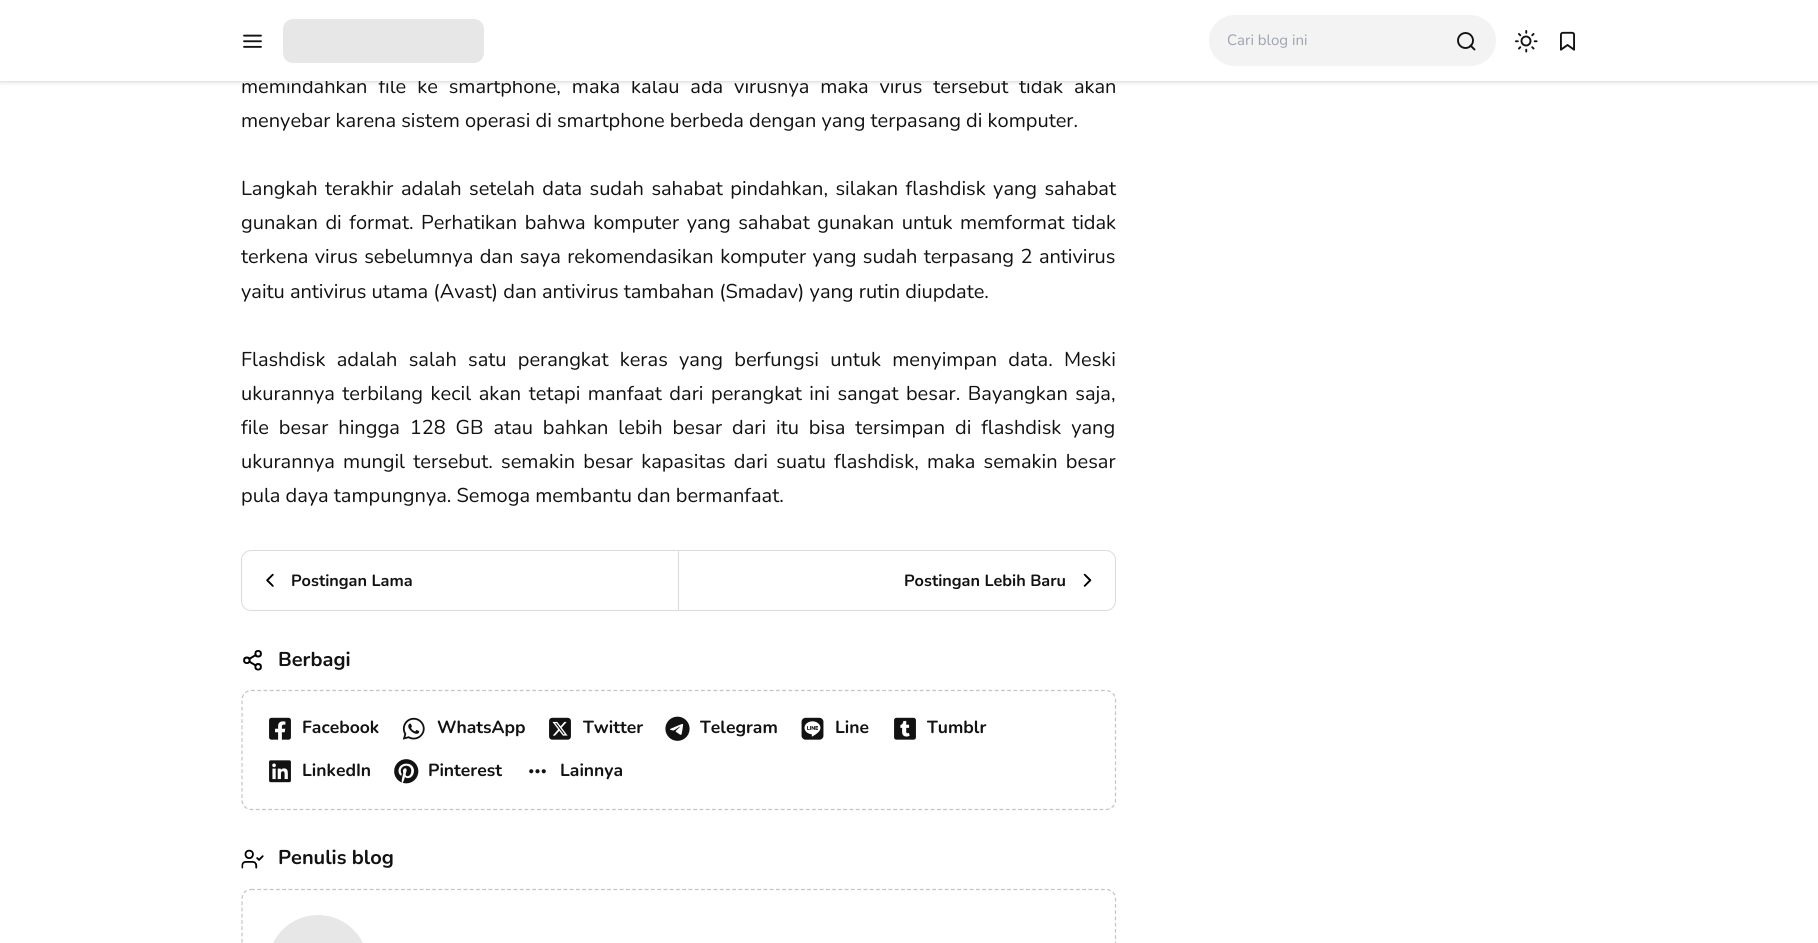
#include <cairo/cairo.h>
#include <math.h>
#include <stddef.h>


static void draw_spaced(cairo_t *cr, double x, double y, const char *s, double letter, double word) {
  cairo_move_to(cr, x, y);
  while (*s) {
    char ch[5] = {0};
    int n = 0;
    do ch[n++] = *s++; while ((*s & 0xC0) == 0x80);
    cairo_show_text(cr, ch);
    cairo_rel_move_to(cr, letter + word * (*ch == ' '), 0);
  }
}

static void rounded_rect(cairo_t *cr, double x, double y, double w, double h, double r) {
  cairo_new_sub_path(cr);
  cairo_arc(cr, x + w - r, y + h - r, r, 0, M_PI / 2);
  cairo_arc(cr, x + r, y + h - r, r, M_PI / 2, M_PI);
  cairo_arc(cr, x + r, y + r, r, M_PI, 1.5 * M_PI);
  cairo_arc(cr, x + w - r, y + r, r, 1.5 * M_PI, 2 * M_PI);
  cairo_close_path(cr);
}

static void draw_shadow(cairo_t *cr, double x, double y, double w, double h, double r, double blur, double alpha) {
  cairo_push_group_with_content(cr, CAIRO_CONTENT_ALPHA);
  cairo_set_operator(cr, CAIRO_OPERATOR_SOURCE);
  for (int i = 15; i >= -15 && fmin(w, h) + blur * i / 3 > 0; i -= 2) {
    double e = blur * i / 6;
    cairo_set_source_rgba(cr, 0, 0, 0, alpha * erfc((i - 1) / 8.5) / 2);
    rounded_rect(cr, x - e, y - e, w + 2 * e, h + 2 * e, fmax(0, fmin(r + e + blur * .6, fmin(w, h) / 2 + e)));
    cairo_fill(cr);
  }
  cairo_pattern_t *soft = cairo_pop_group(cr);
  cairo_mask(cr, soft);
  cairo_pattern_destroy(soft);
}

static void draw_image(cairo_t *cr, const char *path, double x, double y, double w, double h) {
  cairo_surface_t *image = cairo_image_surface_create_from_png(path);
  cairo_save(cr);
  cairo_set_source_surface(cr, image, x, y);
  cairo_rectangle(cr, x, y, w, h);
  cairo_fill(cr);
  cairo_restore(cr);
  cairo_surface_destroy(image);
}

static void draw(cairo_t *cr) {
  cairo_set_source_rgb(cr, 1, 1, 1);
  cairo_paint(cr);
  cairo_set_source_rgb(cr, 0, 0, 0);
  draw_shadow(cr, 1, 3, 1817, 78, 0, 1, 0.1);
  draw_shadow(cr, 0, 1, 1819, 82, 0, 2, 0.1);
  rounded_rect(cr, 241.5, 550.5, 874, 60, 9.5);
  cairo_set_source_rgb(cr, 219 / 255.0, 219 / 255.0, 219 / 255.0);
  cairo_set_line_width(cr, 1);
  cairo_stroke(cr);
  draw_image(cr, "images/4.png", 266, 573, 8, 14);
  cairo_rectangle(cr, 678, 551, 1, 59);
  cairo_fill(cr);
  draw_image(cr, "images/5.png", 1083, 573, 9, 14);
  draw_image(cr, "images/6.png", 243, 650, 19, 21);
  cairo_new_path(cr);
  cairo_move_to(cr, 251, 690.5);
  cairo_line_to(cr, 1106, 690.5);
  cairo_curve_to(cr, 1111.5, 690.5, 1115.5, 695, 1115.5, 700);
  cairo_line_to(cr, 1115.5, 800);
  cairo_curve_to(cr, 1115.5, 805, 1111.5, 809.5, 1106, 809.5);
  cairo_line_to(cr, 251, 809.5);
  cairo_curve_to(cr, 246, 809.5, 242, 805, 242, 800);
  cairo_line_to(cr, 242, 700);
  cairo_curve_to(cr, 242, 695, 246, 690.5, 251, 690.5);
  cairo_close_path(cr);
  cairo_set_source_rgb(cr, 196 / 255.0, 196 / 255.0, 196 / 255.0);
  cairo_set_line_width(cr, 1.2);
  cairo_set_dash(cr, (double[]){3.75, 2.5}, 2, 0);
  cairo_stroke(cr);
  draw_image(cr, "images/7.png", 269, 717, 22, 23);
  draw_image(cr, "images/8.png", 402, 717, 23, 23);
  draw_image(cr, "images/9.png", 549, 717, 22, 23);
  draw_image(cr, "images/10.png", 665, 716, 25, 25);
  draw_image(cr, "images/11.png", 801, 717, 23, 23);
  draw_image(cr, "images/12.png", 894, 717, 22, 23);
  draw_image(cr, "images/13.png", 269, 760, 22, 23);
  draw_image(cr, "images/14.png", 394, 759, 25, 25);
  draw_image(cr, "images/15.png", 529, 769, 17, 5);
  draw_image(cr, "images/16.png", 241, 849, 23, 20);
  cairo_new_path(cr);
  cairo_move_to(cr, 251, 889.5);
  cairo_line_to(cr, 1106, 889.5);
  cairo_curve_to(cr, 1111.5, 889.5, 1115.5, 893.5, 1115.5, 899);
  cairo_line_to(cr, 1115.5, 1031);
  cairo_curve_to(cr, 1115.5, 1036.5, 1111.5, 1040.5, 1106, 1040.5);
  cairo_line_to(cr, 251, 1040.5);
  cairo_curve_to(cr, 246, 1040.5, 242, 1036.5, 242, 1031);
  cairo_line_to(cr, 242, 899);
  cairo_curve_to(cr, 242, 893.5, 246, 889.5, 251, 889.5);
  cairo_close_path(cr);
  cairo_stroke(cr);
  cairo_set_source_rgb(cr, 231 / 255.0, 231 / 255.0, 231 / 255.0);
  rounded_rect(cr, 268, 915, 100, 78, 50);
  cairo_fill(cr);
  cairo_select_font_face(cr, "Nunito", CAIRO_FONT_SLANT_NORMAL, CAIRO_FONT_WEIGHT_NORMAL);
  cairo_set_font_size(cr, 20);
  cairo_set_source_rgb(cr, 18 / 255.0, 18 / 255.0, 18 / 255.0);
  draw_spaced(cr, 241, 93, "memindahkan file ke smartphone, maka kalau ada virusnya maka virus tersebut tidak akan", 0, 5.75);
  cairo_set_source_rgb(cr, 1, 1, 1);
  cairo_rectangle(cr, 0, 0, 1818, 81);
  cairo_fill(cr);
  draw_image(cr, "images/3.png", 1560, 31, 15, 20);
  draw_image(cr, "images/2.png", 1515, 30, 23, 23);
  cairo_set_source_rgb(cr, 243 / 255.0, 243 / 255.0, 243 / 255.0);
  rounded_rect(cr, 1209, 15, 287, 51, 25.5);
  cairo_fill(cr);
  cairo_arc(cr, 1465.5, 40.5, 7.5, 0, 2 * M_PI);
  cairo_set_source_rgb(cr, 18 / 255.0, 18 / 255.0, 18 / 255.0);
  cairo_set_line_width(cr, 1.9);
  cairo_set_dash(cr, NULL, 0, 0);
  cairo_stroke(cr);
  cairo_new_path(cr);
  cairo_move_to(cr, 1474.5, 49.5);
  cairo_line_to(cr, 1470.5, 45.5);
  cairo_set_line_cap(cr, CAIRO_LINE_CAP_ROUND);
  cairo_set_line_join(cr, CAIRO_LINE_JOIN_ROUND);
  cairo_stroke(cr);
  draw_image(cr, "images/1.png", 243, 34, 19, 14);
  cairo_save(cr);
  cairo_rectangle(cr, 1228, 30, 208, 20);
  cairo_clip(cr);
  cairo_set_font_size(cr, 15);
  cairo_set_source_rgb(cr, 156 / 255.0, 163 / 255.0, 175 / 255.0);
  cairo_move_to(cr, 1227, 45);
  cairo_show_text(cr, "Cari blog ini");
  cairo_restore(cr);
  cairo_set_source_rgb(cr, 231 / 255.0, 231 / 255.0, 231 / 255.0);
  rounded_rect(cr, 283, 19, 201, 44, 10);
  cairo_fill(cr);
  cairo_set_source_rgb(cr, 18 / 255.0, 18 / 255.0, 18 / 255.0);
  cairo_move_to(cr, 241, 127);
  cairo_show_text(cr, "menyebar karena sistem operasi di smartphone berbeda dengan yang terpasang di komputer.");
  draw_spaced(cr, 241, 195, "Langkah terakhir adalah setelah data sudah sahabat pindahkan, silakan flashdisk yang sahabat", 0, 2.25);
  draw_spaced(cr, 241, 229, "gunakan di format. Perhatikan bahwa komputer yang sahabat gunakan untuk memformat tidak", 0, 2.4);
  draw_spaced(cr, 241, 263, "terkena virus sebelumnya dan saya rekomendasikan komputer yang sudah terpasang 2 antivirus", 0, 1.25);
  cairo_move_to(cr, 241, 298);
  cairo_show_text(cr, "yaitu antivirus utama (Avast) dan antivirus tambahan (Smadav) yang rutin diupdate.");
  draw_spaced(cr, 241, 366, "Flashdisk adalah salah satu perangkat keras yang berfungsi untuk menyimpan data. Meski", 0, 6.1);
  draw_spaced(cr, 241, 400, "ukurannya terbilang kecil akan tetapi manfaat dari perangkat ini sangat besar. Bayangkan saja,", 0, 2.4);
  draw_spaced(cr, 241, 434, "file besar hingga 128 GB atau bahkan lebih besar dari itu bisa tersimpan di flashdisk yang", 0, 4.75);
  draw_spaced(cr, 241, 468, "ukurannya mungil tersebut. semakin besar kapasitas dari suatu flashdisk, maka semakin besar", 0, 3.1);
  cairo_move_to(cr, 241, 502);
  cairo_show_text(cr, "pula daya tampungnya. Semoga membantu dan bermanfaat.");
  cairo_select_font_face(cr, "Nunito", CAIRO_FONT_SLANT_NORMAL, CAIRO_FONT_WEIGHT_BOLD);
  cairo_set_font_size(cr, 16.25);
  cairo_move_to(cr, 291, 586);
  cairo_show_text(cr, "Postingan Lama");
  cairo_move_to(cr, 904, 586);
  cairo_show_text(cr, "Postingan Lebih Baru");
  cairo_set_font_size(cr, 20);
  cairo_move_to(cr, 278, 666);
  cairo_show_text(cr, "Berbagi");
  cairo_set_font_size(cr, 17.5);
  cairo_move_to(cr, 302, 733);
  cairo_show_text(cr, "Facebook");
  cairo_move_to(cr, 437, 733);
  cairo_show_text(cr, "WhatsApp");
  cairo_move_to(cr, 583, 733);
  cairo_show_text(cr, "Twitter");
  cairo_move_to(cr, 700, 733);
  cairo_show_text(cr, "Telegram");
  cairo_move_to(cr, 835, 733);
  cairo_show_text(cr, "Line");
  cairo_move_to(cr, 927, 733);
  cairo_show_text(cr, "Tumblr");
  cairo_move_to(cr, 302, 776);
  cairo_show_text(cr, "LinkedIn");
  cairo_move_to(cr, 428, 776);
  cairo_show_text(cr, "Pinterest");
  cairo_move_to(cr, 560, 776);
  cairo_show_text(cr, "Lainnya");
  cairo_set_font_size(cr, 20);
  cairo_move_to(cr, 278, 864);
  cairo_show_text(cr, "Penulis blog");
}

int main(void) {
  cairo_surface_t *surface = cairo_image_surface_create(CAIRO_FORMAT_RGB24, 1818, 943);
  cairo_t *cr = cairo_create(surface);
  cairo_font_options_t *options = cairo_font_options_create();
  cairo_font_options_set_hint_metrics(options, CAIRO_HINT_METRICS_OFF);
  cairo_font_options_set_hint_style(options, CAIRO_HINT_STYLE_NONE);
  cairo_set_font_options(cr, options);
  cairo_set_miter_limit(cr, 4);
  draw(cr);
  cairo_surface_write_to_png(surface, "out.png");
  cairo_font_options_destroy(options);
  cairo_destroy(cr);
  cairo_surface_destroy(surface);
  return 0;
}
